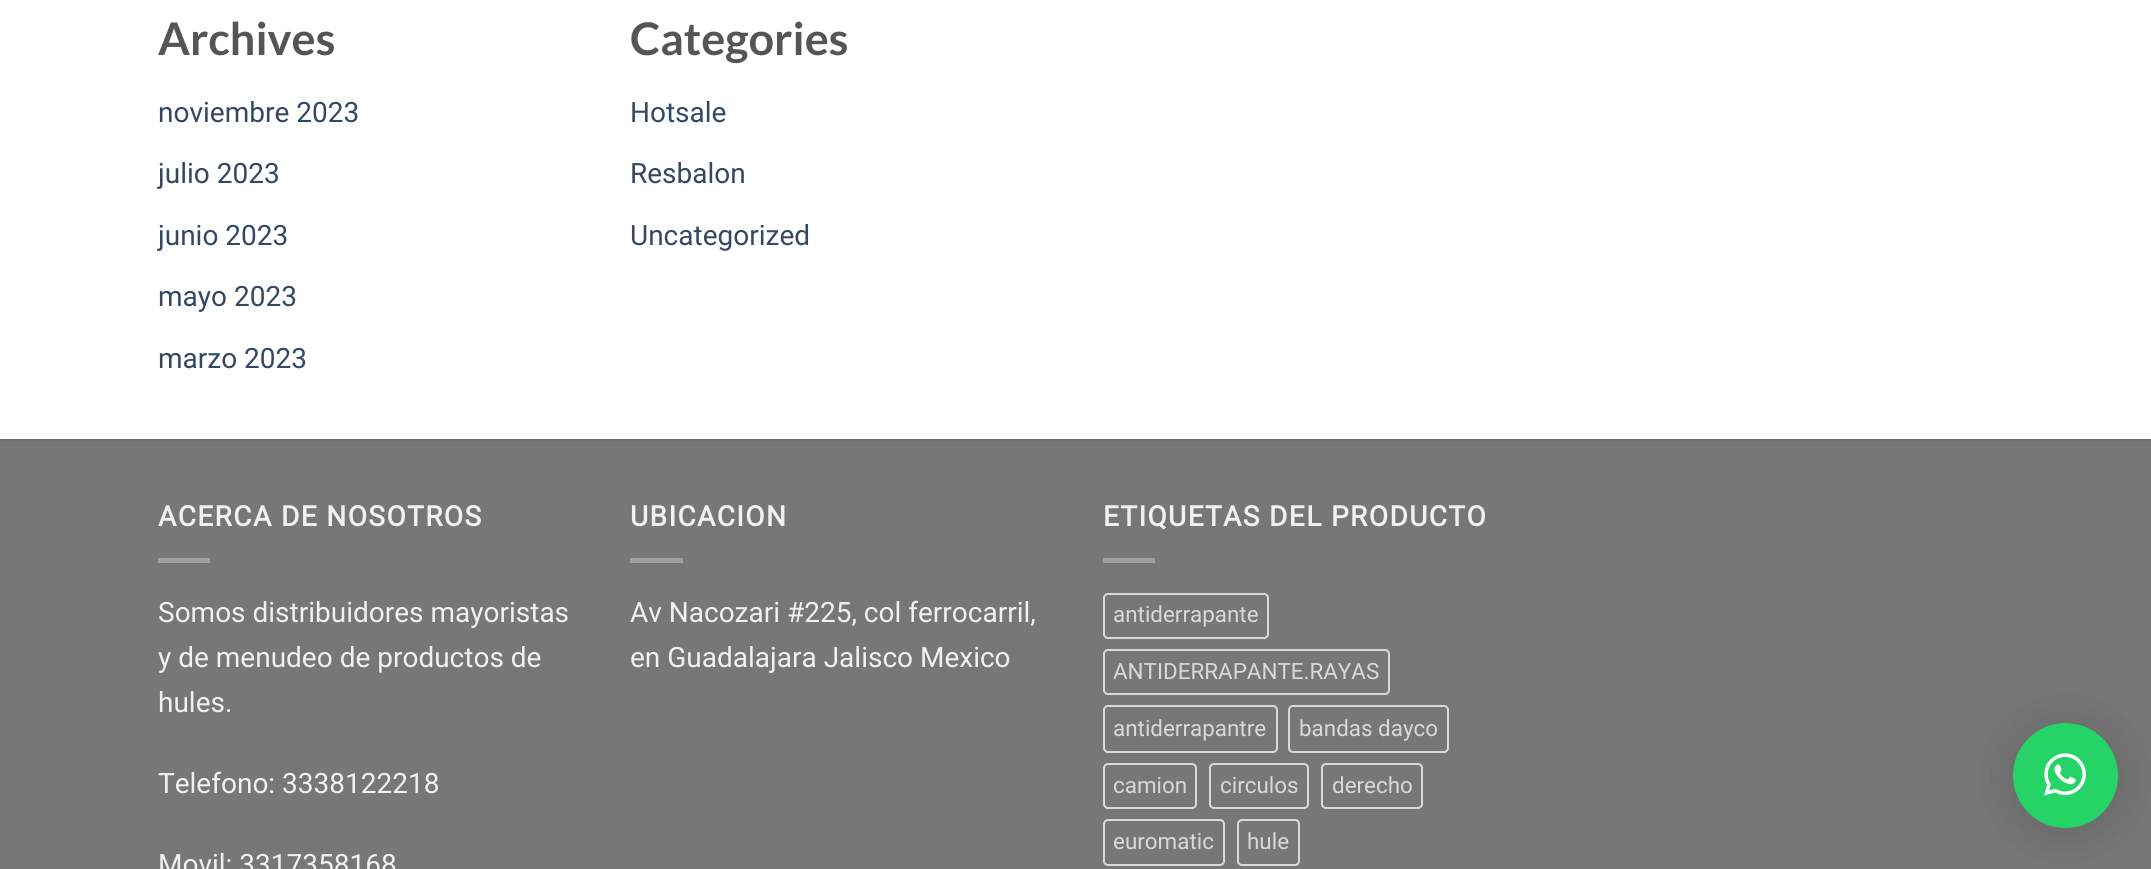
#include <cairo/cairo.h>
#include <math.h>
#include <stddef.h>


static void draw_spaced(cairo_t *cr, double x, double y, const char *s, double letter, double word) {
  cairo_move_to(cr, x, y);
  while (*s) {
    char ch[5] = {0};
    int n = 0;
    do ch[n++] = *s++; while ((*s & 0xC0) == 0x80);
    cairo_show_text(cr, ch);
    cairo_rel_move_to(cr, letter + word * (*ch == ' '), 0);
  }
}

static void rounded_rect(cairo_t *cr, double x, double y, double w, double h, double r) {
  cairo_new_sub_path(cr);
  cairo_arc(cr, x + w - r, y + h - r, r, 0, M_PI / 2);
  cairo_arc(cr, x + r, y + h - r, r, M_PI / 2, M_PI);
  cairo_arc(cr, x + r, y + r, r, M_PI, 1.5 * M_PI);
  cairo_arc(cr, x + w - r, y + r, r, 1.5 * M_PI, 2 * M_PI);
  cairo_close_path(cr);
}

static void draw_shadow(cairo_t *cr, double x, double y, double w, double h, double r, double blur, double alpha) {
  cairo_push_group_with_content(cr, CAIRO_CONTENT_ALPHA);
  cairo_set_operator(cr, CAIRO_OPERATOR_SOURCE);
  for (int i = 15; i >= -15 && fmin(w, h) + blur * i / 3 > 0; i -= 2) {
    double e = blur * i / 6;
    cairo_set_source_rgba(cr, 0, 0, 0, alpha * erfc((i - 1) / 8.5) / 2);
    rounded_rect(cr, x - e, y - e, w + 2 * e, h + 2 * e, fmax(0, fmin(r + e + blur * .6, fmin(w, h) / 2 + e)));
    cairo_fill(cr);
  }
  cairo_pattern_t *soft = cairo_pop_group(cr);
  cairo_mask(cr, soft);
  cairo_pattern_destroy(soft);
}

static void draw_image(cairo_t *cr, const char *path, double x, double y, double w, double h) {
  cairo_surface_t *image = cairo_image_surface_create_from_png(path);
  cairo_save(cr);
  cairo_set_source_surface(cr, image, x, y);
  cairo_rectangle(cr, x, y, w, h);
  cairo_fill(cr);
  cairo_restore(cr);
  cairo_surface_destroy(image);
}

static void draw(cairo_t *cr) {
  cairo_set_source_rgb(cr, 1, 1, 1);
  cairo_paint(cr);
  cairo_set_source_rgb(cr, 119 / 255.0, 119 / 255.0, 119 / 255.0);
  cairo_rectangle(cr, 0, 441, 2151, 428);
  cairo_fill(cr);
  cairo_set_source_rgb(cr, 113 / 255.0, 113 / 255.0, 113 / 255.0);
  cairo_rectangle(cr, 0, 439, 2151, 2);
  cairo_fill(cr);
  cairo_set_source_rgb(cr, 160 / 255.0, 160 / 255.0, 160 / 255.0);
  cairo_rectangle(cr, 158, 558, 52, 5);
  cairo_fill(cr);
  cairo_rectangle(cr, 630, 558, 53, 5);
  cairo_fill(cr);
  cairo_rectangle(cr, 1103, 558, 52, 5);
  cairo_fill(cr);
  rounded_rect(cr, 1104, 594, 164, 44, 4);
  cairo_set_source_rgb(cr, 217 / 255.0, 217 / 255.0, 217 / 255.0);
  cairo_stroke(cr);
  rounded_rect(cr, 1104, 650, 285, 44, 4);
  cairo_stroke(cr);
  rounded_rect(cr, 1104, 706, 173, 46, 4);
  cairo_stroke(cr);
  rounded_rect(cr, 1289, 706, 159, 46, 4);
  cairo_stroke(cr);
  rounded_rect(cr, 1104, 764, 92, 44, 4);
  cairo_stroke(cr);
  rounded_rect(cr, 1210, 764, 98, 44, 4);
  cairo_stroke(cr);
  rounded_rect(cr, 1322, 764, 100, 44, 4);
  cairo_stroke(cr);
  rounded_rect(cr, 1104, 820, 120, 45, 4);
  cairo_stroke(cr);
  rounded_rect(cr, 1238, 820, 61, 45, 4);
  cairo_stroke(cr);
  cairo_set_source_rgb(cr, 0, 0, 0);
  draw_shadow(cr, 2013, 726, 105, 105, 52.5, 28, 0.16);
  cairo_set_source_rgb(cr, 37 / 255.0, 211 / 255.0, 102 / 255.0);
  cairo_arc(cr, 2065.5, 775.5, 52.5, 0, 2 * M_PI);
  cairo_fill(cr);
  draw_image(cr, "images/1.png", 2044, 753, 42, 43);
  cairo_select_font_face(cr, "Lato", CAIRO_FONT_SLANT_NORMAL, CAIRO_FONT_WEIGHT_BOLD);
  cairo_set_font_size(cr, 45);
  cairo_set_source_rgb(cr, 85 / 255.0, 85 / 255.0, 85 / 255.0);
  cairo_move_to(cr, 158, 55);
  cairo_show_text(cr, "Archives");
  cairo_select_font_face(cr, "Roboto", CAIRO_FONT_SLANT_NORMAL, CAIRO_FONT_WEIGHT_NORMAL);
  cairo_set_font_size(cr, 28);
  cairo_set_source_rgb(cr, 51 / 255.0, 72 / 255.0, 98 / 255.0);
  cairo_move_to(cr, 158, 122);
  cairo_show_text(cr, "noviembre 2023");
  cairo_move_to(cr, 158, 183);
  cairo_show_text(cr, "julio 2023");
  cairo_move_to(cr, 158, 245);
  cairo_show_text(cr, "junio 2023");
  cairo_move_to(cr, 158, 306);
  cairo_show_text(cr, "mayo 2023");
  cairo_move_to(cr, 158, 368);
  cairo_show_text(cr, "marzo 2023");
  cairo_select_font_face(cr, "Lato", CAIRO_FONT_SLANT_NORMAL, CAIRO_FONT_WEIGHT_BOLD);
  cairo_set_font_size(cr, 45);
  cairo_set_source_rgb(cr, 85 / 255.0, 85 / 255.0, 85 / 255.0);
  cairo_move_to(cr, 630, 55);
  cairo_show_text(cr, "Categories");
  cairo_select_font_face(cr, "Roboto", CAIRO_FONT_SLANT_NORMAL, CAIRO_FONT_WEIGHT_NORMAL);
  cairo_set_font_size(cr, 28);
  cairo_set_source_rgb(cr, 51 / 255.0, 72 / 255.0, 98 / 255.0);
  cairo_move_to(cr, 630, 122);
  cairo_show_text(cr, "Hotsale");
  cairo_move_to(cr, 630, 183);
  cairo_show_text(cr, "Resbalon");
  cairo_move_to(cr, 630, 245);
  cairo_show_text(cr, "Uncategorized");
  cairo_select_font_face(cr, "Roboto", CAIRO_FONT_SLANT_NORMAL, CAIRO_FONT_WEIGHT_BOLD);
  cairo_set_source_rgb(cr, 241 / 255.0, 241 / 255.0, 241 / 255.0);
  draw_spaced(cr, 158, 526, "ACERCA DE NOSOTROS", 1.4, 0);
  cairo_select_font_face(cr, "Roboto", CAIRO_FONT_SLANT_NORMAL, CAIRO_FONT_WEIGHT_NORMAL);
  cairo_move_to(cr, 158, 622);
  cairo_show_text(cr, "Somos distribuidores mayoristas");
  cairo_move_to(cr, 158, 667);
  cairo_show_text(cr, "y de menudeo de productos de");
  cairo_move_to(cr, 158, 712);
  cairo_show_text(cr, "hules.");
  cairo_move_to(cr, 158, 793);
  cairo_show_text(cr, "Telefono: 3338122218");
  cairo_move_to(cr, 158, 874);
  cairo_show_text(cr, "Movil: 3317358168");
  cairo_select_font_face(cr, "Roboto", CAIRO_FONT_SLANT_NORMAL, CAIRO_FONT_WEIGHT_BOLD);
  draw_spaced(cr, 630, 526, "UBICACION", 1.4, 0);
  cairo_select_font_face(cr, "Roboto", CAIRO_FONT_SLANT_NORMAL, CAIRO_FONT_WEIGHT_NORMAL);
  cairo_move_to(cr, 630, 622);
  cairo_show_text(cr, "Av Nacozari #225, col ferrocarril,");
  cairo_move_to(cr, 630, 667);
  cairo_show_text(cr, "en Guadalajara Jalisco Mexico");
  cairo_select_font_face(cr, "Roboto", CAIRO_FONT_SLANT_NORMAL, CAIRO_FONT_WEIGHT_BOLD);
  draw_spaced(cr, 1103, 526, "ETIQUETAS DEL PRODUCTO", 1.4, 0);
  cairo_select_font_face(cr, "Roboto", CAIRO_FONT_SLANT_NORMAL, CAIRO_FONT_WEIGHT_NORMAL);
  cairo_set_font_size(cr, 22.4);
  cairo_set_source_rgb(cr, 217 / 255.0, 217 / 255.0, 217 / 255.0);
  cairo_move_to(cr, 1113, 622);
  cairo_show_text(cr, "antiderrapante");
  cairo_move_to(cr, 1113, 679);
  cairo_show_text(cr, "ANTIDERRAPANTE.RAYAS");
  cairo_move_to(cr, 1113, 736);
  cairo_show_text(cr, "antiderrapantre");
  cairo_move_to(cr, 1299, 736);
  cairo_show_text(cr, "bandas dayco");
  cairo_move_to(cr, 1113, 793);
  cairo_show_text(cr, "camion");
  cairo_move_to(cr, 1220, 793);
  cairo_show_text(cr, "circulos");
  cairo_move_to(cr, 1332, 793);
  cairo_show_text(cr, "derecho");
  cairo_move_to(cr, 1113, 849);
  cairo_show_text(cr, "euromatic");
  cairo_move_to(cr, 1247, 849);
  cairo_show_text(cr, "hule");
}

int main(void) {
  cairo_surface_t *surface = cairo_image_surface_create(CAIRO_FORMAT_RGB24, 2151, 869);
  cairo_t *cr = cairo_create(surface);
  cairo_font_options_t *options = cairo_font_options_create();
  cairo_font_options_set_hint_metrics(options, CAIRO_HINT_METRICS_OFF);
  cairo_font_options_set_hint_style(options, CAIRO_HINT_STYLE_NONE);
  cairo_set_font_options(cr, options);
  cairo_set_miter_limit(cr, 4);
  draw(cr);
  cairo_surface_write_to_png(surface, "out.png");
  cairo_font_options_destroy(options);
  cairo_destroy(cr);
  cairo_surface_destroy(surface);
  return 0;
}
